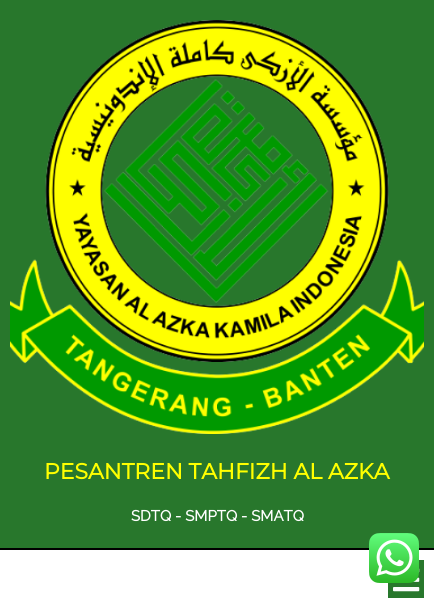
#include <cairo/cairo.h>
#include <math.h>
#include <stddef.h>


static void draw_image(cairo_t *cr, const char *path, double x, double y, double w, double h) {
  cairo_surface_t *image = cairo_image_surface_create_from_png(path);
  cairo_save(cr);
  cairo_set_source_surface(cr, image, x, y);
  cairo_rectangle(cr, x, y, w, h);
  cairo_fill(cr);
  cairo_restore(cr);
  cairo_surface_destroy(image);
}

static void draw(cairo_t *cr) {
  cairo_set_source_rgb(cr, 1, 1, 1);
  cairo_paint(cr);
  cairo_set_source_rgb(cr, 40 / 255.0, 119 / 255.0, 44 / 255.0);
  cairo_rectangle(cr, 0, 0, 434, 548);
  cairo_fill(cr);
  cairo_set_source_rgb(cr, 0, 0, 0);
  cairo_rectangle(cr, 0, 548, 434, 2);
  cairo_fill(cr);
  draw_image(cr, "images/1.png", 10, 20, 414, 414);
  cairo_set_source_rgb(cr, 40 / 255.0, 119 / 255.0, 44 / 255.0);
  cairo_rectangle(cr, 388, 560, 36, 38);
  cairo_fill(cr);
  draw_image(cr, "images/2.png", 393, 568, 27, 24);
  draw_image(cr, "images/3.png", 369, 533, 50, 50);
  cairo_select_font_face(cr, "Montserrat", CAIRO_FONT_SLANT_NORMAL, CAIRO_FONT_WEIGHT_BOLD);
  cairo_set_font_size(cr, 22);
  cairo_set_source_rgb(cr, 1, 1, 0);
  cairo_move_to(cr, 44, 479);
  cairo_show_text(cr, "PESANTREN TAHFIZH AL AZKA");
  cairo_select_font_face(cr, "Raleway", CAIRO_FONT_SLANT_NORMAL, CAIRO_FONT_WEIGHT_BOLD);
  cairo_set_font_size(cr, 15);
  cairo_set_source_rgb(cr, 1, 1, 1);
  cairo_move_to(cr, 131, 521);
  cairo_show_text(cr, "SDTQ - SMPTQ - SMATQ");
}

int main(void) {
  cairo_surface_t *surface = cairo_image_surface_create(CAIRO_FORMAT_RGB24, 434, 598);
  cairo_t *cr = cairo_create(surface);
  cairo_font_options_t *options = cairo_font_options_create();
  cairo_font_options_set_hint_metrics(options, CAIRO_HINT_METRICS_OFF);
  cairo_font_options_set_hint_style(options, CAIRO_HINT_STYLE_NONE);
  cairo_set_font_options(cr, options);
  cairo_set_miter_limit(cr, 4);
  draw(cr);
  cairo_surface_write_to_png(surface, "out.png");
  cairo_font_options_destroy(options);
  cairo_destroy(cr);
  cairo_surface_destroy(surface);
  return 0;
}
